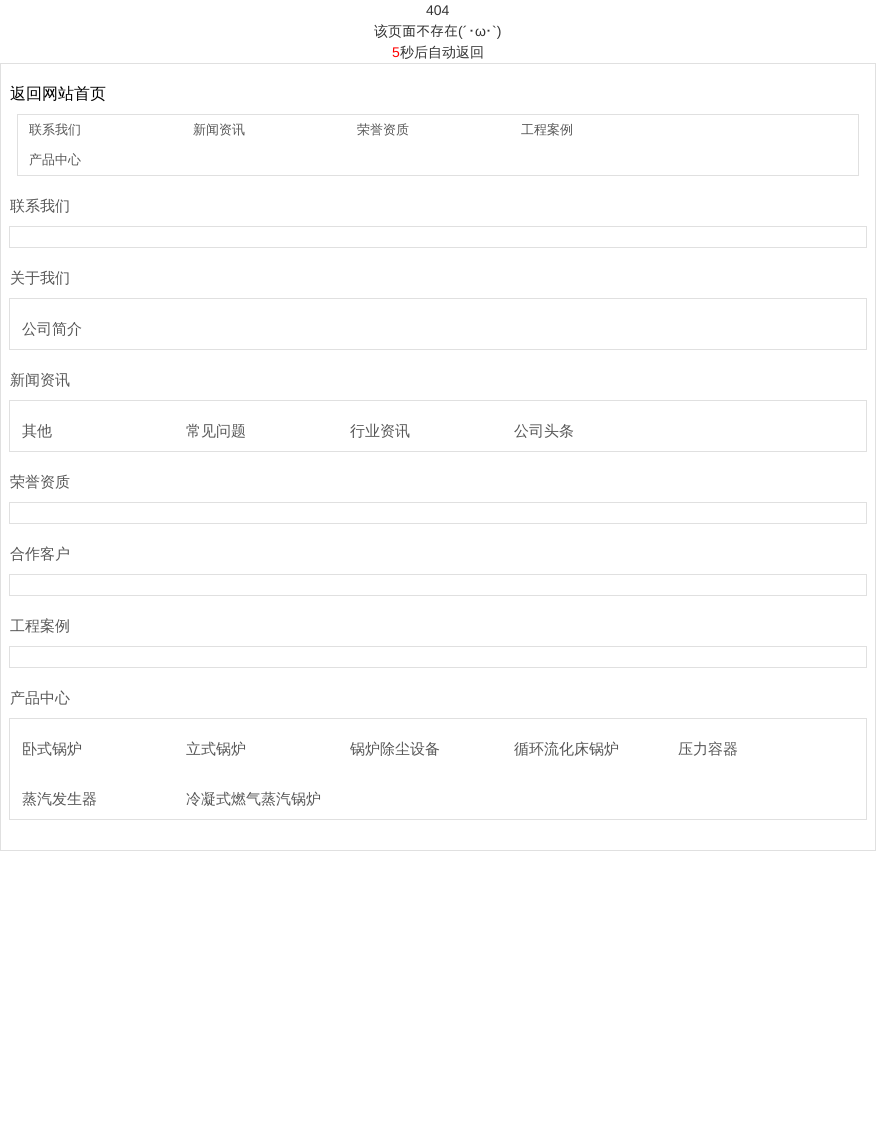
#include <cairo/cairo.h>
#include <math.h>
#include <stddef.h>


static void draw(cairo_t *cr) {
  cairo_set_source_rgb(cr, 1, 1, 1);
  cairo_paint(cr);
  cairo_rectangle(cr, 0.5, 63.5, 875, 787);
  cairo_set_source_rgb(cr, 224 / 255.0, 224 / 255.0, 224 / 255.0);
  cairo_set_line_width(cr, 1);
  cairo_stroke(cr);
  cairo_rectangle(cr, 17.5, 114.5, 841, 61);
  cairo_stroke(cr);
  cairo_rectangle(cr, 9.5, 226.5, 857, 21);
  cairo_stroke(cr);
  cairo_rectangle(cr, 9.5, 298.5, 857, 51);
  cairo_stroke(cr);
  cairo_rectangle(cr, 9.5, 400.5, 857, 51);
  cairo_stroke(cr);
  cairo_rectangle(cr, 9.5, 502.5, 857, 21);
  cairo_stroke(cr);
  cairo_rectangle(cr, 9.5, 574.5, 857, 21);
  cairo_stroke(cr);
  cairo_rectangle(cr, 9.5, 646.5, 857, 21);
  cairo_stroke(cr);
  cairo_rectangle(cr, 9.5, 718.5, 857, 101);
  cairo_stroke(cr);
  cairo_select_font_face(cr, "Liberation Sans", CAIRO_FONT_SLANT_NORMAL, CAIRO_FONT_WEIGHT_NORMAL);
  cairo_set_font_size(cr, 14);
  cairo_set_source_rgb(cr, 51 / 255.0, 51 / 255.0, 51 / 255.0);
  cairo_move_to(cr, 426, 15);
  cairo_show_text(cr, "404");
  cairo_select_font_face(cr, "WenQuanYi Zen Hei Medium", CAIRO_FONT_SLANT_NORMAL, CAIRO_FONT_WEIGHT_NORMAL);
  cairo_move_to(cr, 374, 36);
  cairo_show_text(cr, "该页");
  cairo_select_font_face(cr, "IPAGothic", CAIRO_FONT_SLANT_NORMAL, CAIRO_FONT_WEIGHT_NORMAL);
  cairo_move_to(cr, 402, 36);
  cairo_show_text(cr, "面不存在");
  cairo_select_font_face(cr, "Liberation Sans", CAIRO_FONT_SLANT_NORMAL, CAIRO_FONT_WEIGHT_NORMAL);
  cairo_move_to(cr, 458, 36);
  cairo_show_text(cr, "(´");
  cairo_select_font_face(cr, "IPAGothic", CAIRO_FONT_SLANT_NORMAL, CAIRO_FONT_WEIGHT_NORMAL);
  cairo_move_to(cr, 468, 36);
  cairo_show_text(cr, "･");
  cairo_select_font_face(cr, "Liberation Sans", CAIRO_FONT_SLANT_NORMAL, CAIRO_FONT_WEIGHT_NORMAL);
  cairo_move_to(cr, 475, 36);
  cairo_show_text(cr, "ω");
  cairo_select_font_face(cr, "IPAGothic", CAIRO_FONT_SLANT_NORMAL, CAIRO_FONT_WEIGHT_NORMAL);
  cairo_move_to(cr, 485, 36);
  cairo_show_text(cr, "･");
  cairo_select_font_face(cr, "Liberation Sans", CAIRO_FONT_SLANT_NORMAL, CAIRO_FONT_WEIGHT_NORMAL);
  cairo_move_to(cr, 492, 36);
  cairo_show_text(cr, "`)");
  cairo_set_source_rgb(cr, 1, 0, 0);
  cairo_move_to(cr, 392, 57);
  cairo_show_text(cr, "5");
  cairo_select_font_face(cr, "WenQuanYi Zen Hei Medium", CAIRO_FONT_SLANT_NORMAL, CAIRO_FONT_WEIGHT_NORMAL);
  cairo_set_source_rgb(cr, 51 / 255.0, 51 / 255.0, 51 / 255.0);
  cairo_move_to(cr, 400, 57);
  cairo_show_text(cr, "秒后自动返回");
  cairo_set_font_size(cr, 16);
  cairo_set_source_rgb(cr, 0, 0, 0);
  cairo_move_to(cr, 10, 99);
  cairo_show_text(cr, "返回网站首页");
  cairo_set_font_size(cr, 13);
  cairo_set_source_rgb(cr, 86 / 255.0, 86 / 255.0, 86 / 255.0);
  cairo_move_to(cr, 29, 134);
  cairo_show_text(cr, "联系我们");
  cairo_move_to(cr, 193, 134);
  cairo_show_text(cr, "新闻资讯");
  cairo_move_to(cr, 357, 134);
  cairo_show_text(cr, "荣誉资质");
  cairo_move_to(cr, 521, 134);
  cairo_show_text(cr, "工程案例");
  cairo_move_to(cr, 29, 164);
  cairo_show_text(cr, "产品中心");
  cairo_set_font_size(cr, 15);
  cairo_move_to(cr, 10, 211);
  cairo_show_text(cr, "联系我们");
  cairo_move_to(cr, 10, 283);
  cairo_show_text(cr, "关于我们");
  cairo_move_to(cr, 22, 334);
  cairo_show_text(cr, "公司简介");
  cairo_move_to(cr, 10, 385);
  cairo_show_text(cr, "新闻资讯");
  cairo_move_to(cr, 22, 436);
  cairo_show_text(cr, "其他");
  cairo_move_to(cr, 186, 436);
  cairo_show_text(cr, "常见问题");
  cairo_move_to(cr, 350, 436);
  cairo_show_text(cr, "行业资讯");
  cairo_move_to(cr, 514, 436);
  cairo_show_text(cr, "公司头条");
  cairo_move_to(cr, 10, 487);
  cairo_show_text(cr, "荣誉资质");
  cairo_move_to(cr, 10, 559);
  cairo_show_text(cr, "合作客户");
  cairo_move_to(cr, 10, 631);
  cairo_show_text(cr, "工程案例");
  cairo_move_to(cr, 10, 703);
  cairo_show_text(cr, "产品中心");
  cairo_move_to(cr, 22, 754);
  cairo_show_text(cr, "卧式锅炉");
  cairo_move_to(cr, 186, 754);
  cairo_show_text(cr, "立式锅炉");
  cairo_move_to(cr, 350, 754);
  cairo_show_text(cr, "锅炉除尘设备");
  cairo_move_to(cr, 514, 754);
  cairo_show_text(cr, "循环流化床锅炉");
  cairo_move_to(cr, 678, 754);
  cairo_show_text(cr, "压力容器");
  cairo_move_to(cr, 22, 804);
  cairo_show_text(cr, "蒸汽发生器");
  cairo_move_to(cr, 186, 804);
  cairo_show_text(cr, "冷凝式燃气蒸汽锅炉");
}

int main(void) {
  cairo_surface_t *surface = cairo_image_surface_create(CAIRO_FORMAT_RGB24, 876, 1134);
  cairo_t *cr = cairo_create(surface);
  cairo_font_options_t *options = cairo_font_options_create();
  cairo_font_options_set_hint_metrics(options, CAIRO_HINT_METRICS_OFF);
  cairo_font_options_set_hint_style(options, CAIRO_HINT_STYLE_NONE);
  cairo_set_font_options(cr, options);
  cairo_set_miter_limit(cr, 4);
  draw(cr);
  cairo_surface_write_to_png(surface, "out.png");
  cairo_font_options_destroy(options);
  cairo_destroy(cr);
  cairo_surface_destroy(surface);
  return 0;
}
